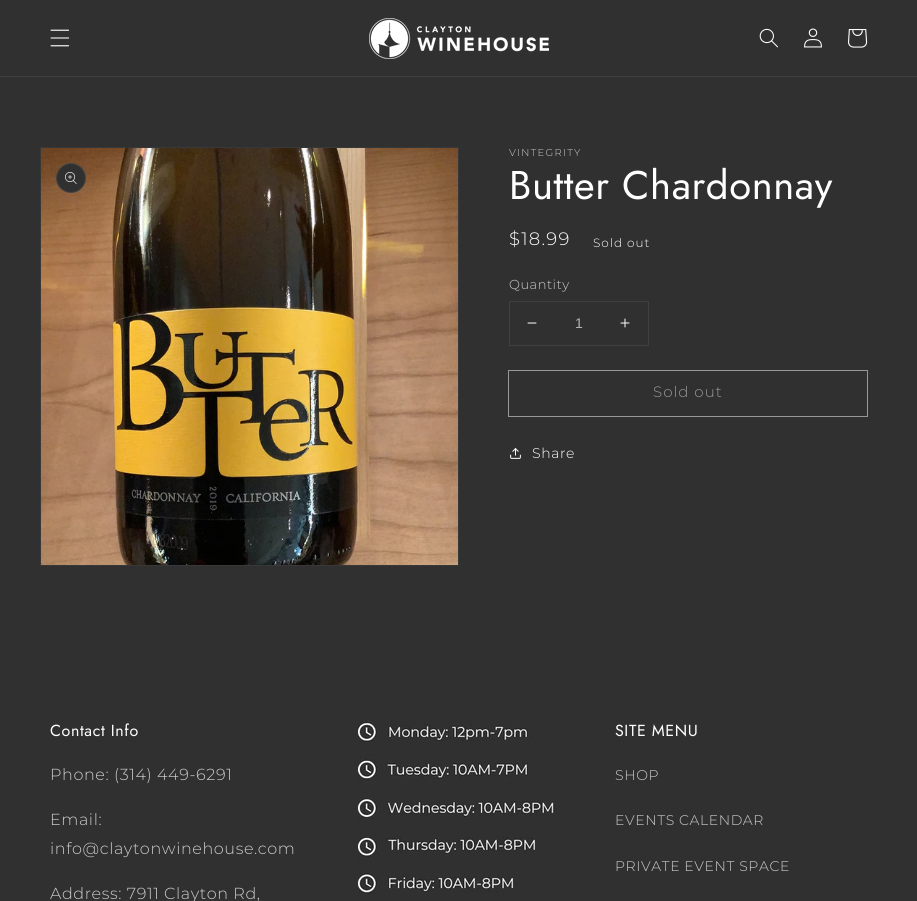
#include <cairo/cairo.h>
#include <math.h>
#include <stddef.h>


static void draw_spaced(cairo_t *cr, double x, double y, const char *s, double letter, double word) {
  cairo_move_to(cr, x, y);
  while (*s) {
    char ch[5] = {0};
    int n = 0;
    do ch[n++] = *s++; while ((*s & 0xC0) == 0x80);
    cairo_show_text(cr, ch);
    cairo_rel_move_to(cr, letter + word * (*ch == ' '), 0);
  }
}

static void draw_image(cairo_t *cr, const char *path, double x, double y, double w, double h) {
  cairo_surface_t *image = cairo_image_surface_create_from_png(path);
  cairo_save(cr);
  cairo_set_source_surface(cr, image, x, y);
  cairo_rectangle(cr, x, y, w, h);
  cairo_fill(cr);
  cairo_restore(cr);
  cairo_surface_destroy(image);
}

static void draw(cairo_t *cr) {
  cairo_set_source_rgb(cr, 48 / 255.0, 48 / 255.0, 48 / 255.0);
  cairo_paint(cr);
  cairo_set_source_rgb(cr, 65 / 255.0, 65 / 255.0, 65 / 255.0);
  cairo_rectangle(cr, 0, 76, 917, 1);
  cairo_fill(cr);
  draw_image(cr, "images/1.png", 50, 29, 20, 18);
  draw_image(cr, "images/2.png", 369, 18, 180, 41);
  draw_image(cr, "images/3.png", 759, 28, 19, 20);
  draw_image(cr, "images/4.png", 804, 28, 18, 20);
  draw_image(cr, "images/5.png", 848, 29, 20, 19);
  cairo_rectangle(cr, 40.5, 147.5, 418, 418);
  cairo_set_source_rgb(cr, 56 / 255.0, 56 / 255.0, 56 / 255.0);
  cairo_set_line_width(cr, 1);
  cairo_stroke(cr);
  draw_image(cr, "images/6.png", 41, 148, 417, 417);
  cairo_set_source_rgb(cr, 48 / 255.0, 48 / 255.0, 48 / 255.0);
  cairo_arc(cr, 71, 178, 15, 0, 2 * M_PI);
  cairo_fill(cr);
  cairo_arc(cr, 71, 178, 14.5, 0, 2 * M_PI);
  cairo_set_source_rgba(cr, 252 / 255.0, 252 / 255.0, 252 / 255.0, 0.1);
  cairo_stroke(cr);
  draw_image(cr, "images/7.png", 65, 172, 12, 12);
  cairo_rectangle(cr, 509.5, 301.5, 139, 44);
  cairo_set_source_rgb(cr, 64 / 255.0, 64 / 255.0, 64 / 255.0);
  cairo_stroke(cr);
  draw_image(cr, "images/8.png", 527, 322, 10, 2);
  draw_image(cr, "images/9.png", 620, 318, 10, 10);
  cairo_rectangle(cr, 508.5, 370.5, 359, 46);
  cairo_set_source_rgb(cr, 152 / 255.0, 152 / 255.0, 152 / 255.0);
  cairo_stroke(cr);
  draw_image(cr, "images/10.png", 510, 448, 11, 11);
  draw_image(cr, "images/11.png", 358, 721, 197, 173);
  cairo_select_font_face(cr, "Montserrat Light", CAIRO_FONT_SLANT_NORMAL, CAIRO_FONT_WEIGHT_NORMAL);
  cairo_set_font_size(cr, 10);
  cairo_set_source_rgb(cr, 203 / 255.0, 203 / 255.0, 203 / 255.0);
  draw_spaced(cr, 509, 156, "VINTEGRITY", 1.25, 0);
  cairo_select_font_face(cr, "Jost", CAIRO_FONT_SLANT_NORMAL, CAIRO_FONT_WEIGHT_NORMAL);
  cairo_set_font_size(cr, 40);
  cairo_set_source_rgb(cr, 1, 1, 1);
  draw_spaced(cr, 509, 199, "Butter Chardonnay", 0.6, 0);
  cairo_select_font_face(cr, "Montserrat Light", CAIRO_FONT_SLANT_NORMAL, CAIRO_FONT_WEIGHT_NORMAL);
  cairo_set_font_size(cr, 18);
  draw_spaced(cr, 509, 245, "$18.99", 1.25, 0);
  cairo_set_font_size(cr, 12);
  draw_spaced(cr, 593, 247, "Sold out", 1, 0);
  cairo_set_font_size(cr, 13);
  cairo_set_source_rgb(cr, 203 / 255.0, 203 / 255.0, 203 / 255.0);
  draw_spaced(cr, 509, 289, "Quantity", 0.5, 0);
  cairo_select_font_face(cr, "Liberation Sans", CAIRO_FONT_SLANT_NORMAL, CAIRO_FONT_WEIGHT_NORMAL);
  cairo_set_font_size(cr, 14);
  cairo_set_source_rgb(cr, 178 / 255.0, 178 / 255.0, 178 / 255.0);
  cairo_move_to(cr, 575, 328);
  cairo_show_text(cr, "1");
  cairo_select_font_face(cr, "Montserrat Light", CAIRO_FONT_SLANT_NORMAL, CAIRO_FONT_WEIGHT_NORMAL);
  cairo_set_font_size(cr, 15);
  cairo_set_source_rgb(cr, 152 / 255.0, 152 / 255.0, 152 / 255.0);
  draw_spaced(cr, 653, 397, "Sold out", 1, 0);
  cairo_set_font_size(cr, 14);
  cairo_set_source_rgb(cr, 1, 1, 1);
  draw_spaced(cr, 532, 458, "Share", 0.6, 0);
  cairo_select_font_face(cr, "Jost", CAIRO_FONT_SLANT_NORMAL, CAIRO_FONT_WEIGHT_NORMAL);
  cairo_set_font_size(cr, 16);
  draw_spaced(cr, 50, 736, "Contact Info", 0.6, 0);
  cairo_select_font_face(cr, "Montserrat Light", CAIRO_FONT_SLANT_NORMAL, CAIRO_FONT_WEIGHT_NORMAL);
  cairo_set_source_rgb(cr, 203 / 255.0, 203 / 255.0, 203 / 255.0);
  draw_spaced(cr, 50, 780, "Phone: (314) 449-6291", 0.6, 0);
  draw_spaced(cr, 50, 825, "Email:", 0.6, 0);
  draw_spaced(cr, 50, 854, "info@claytonwinehouse.com", 0.6, 0);
  draw_spaced(cr, 50, 899, "Address: 7911 Clayton Rd,", 0.6, 0);
  cairo_select_font_face(cr, "Jost", CAIRO_FONT_SLANT_NORMAL, CAIRO_FONT_WEIGHT_NORMAL);
  cairo_set_source_rgb(cr, 1, 1, 1);
  draw_spaced(cr, 615, 736, "SITE MENU", 0.6, 0);
  cairo_select_font_face(cr, "Montserrat Light", CAIRO_FONT_SLANT_NORMAL, CAIRO_FONT_WEIGHT_NORMAL);
  cairo_set_font_size(cr, 14);
  cairo_set_source_rgb(cr, 203 / 255.0, 203 / 255.0, 203 / 255.0);
  draw_spaced(cr, 615, 780, "SHOP", 0.6, 0);
  draw_spaced(cr, 615, 825, "EVENTS CALENDAR", 0.6, 0);
  draw_spaced(cr, 615, 871, "PRIVATE EVENT SPACE", 0.6, 0);
}

int main(void) {
  cairo_surface_t *surface = cairo_image_surface_create(CAIRO_FORMAT_RGB24, 917, 901);
  cairo_t *cr = cairo_create(surface);
  cairo_font_options_t *options = cairo_font_options_create();
  cairo_font_options_set_hint_metrics(options, CAIRO_HINT_METRICS_OFF);
  cairo_font_options_set_hint_style(options, CAIRO_HINT_STYLE_NONE);
  cairo_set_font_options(cr, options);
  cairo_set_miter_limit(cr, 4);
  draw(cr);
  cairo_surface_write_to_png(surface, "out.png");
  cairo_font_options_destroy(options);
  cairo_destroy(cr);
  cairo_surface_destroy(surface);
  return 0;
}
